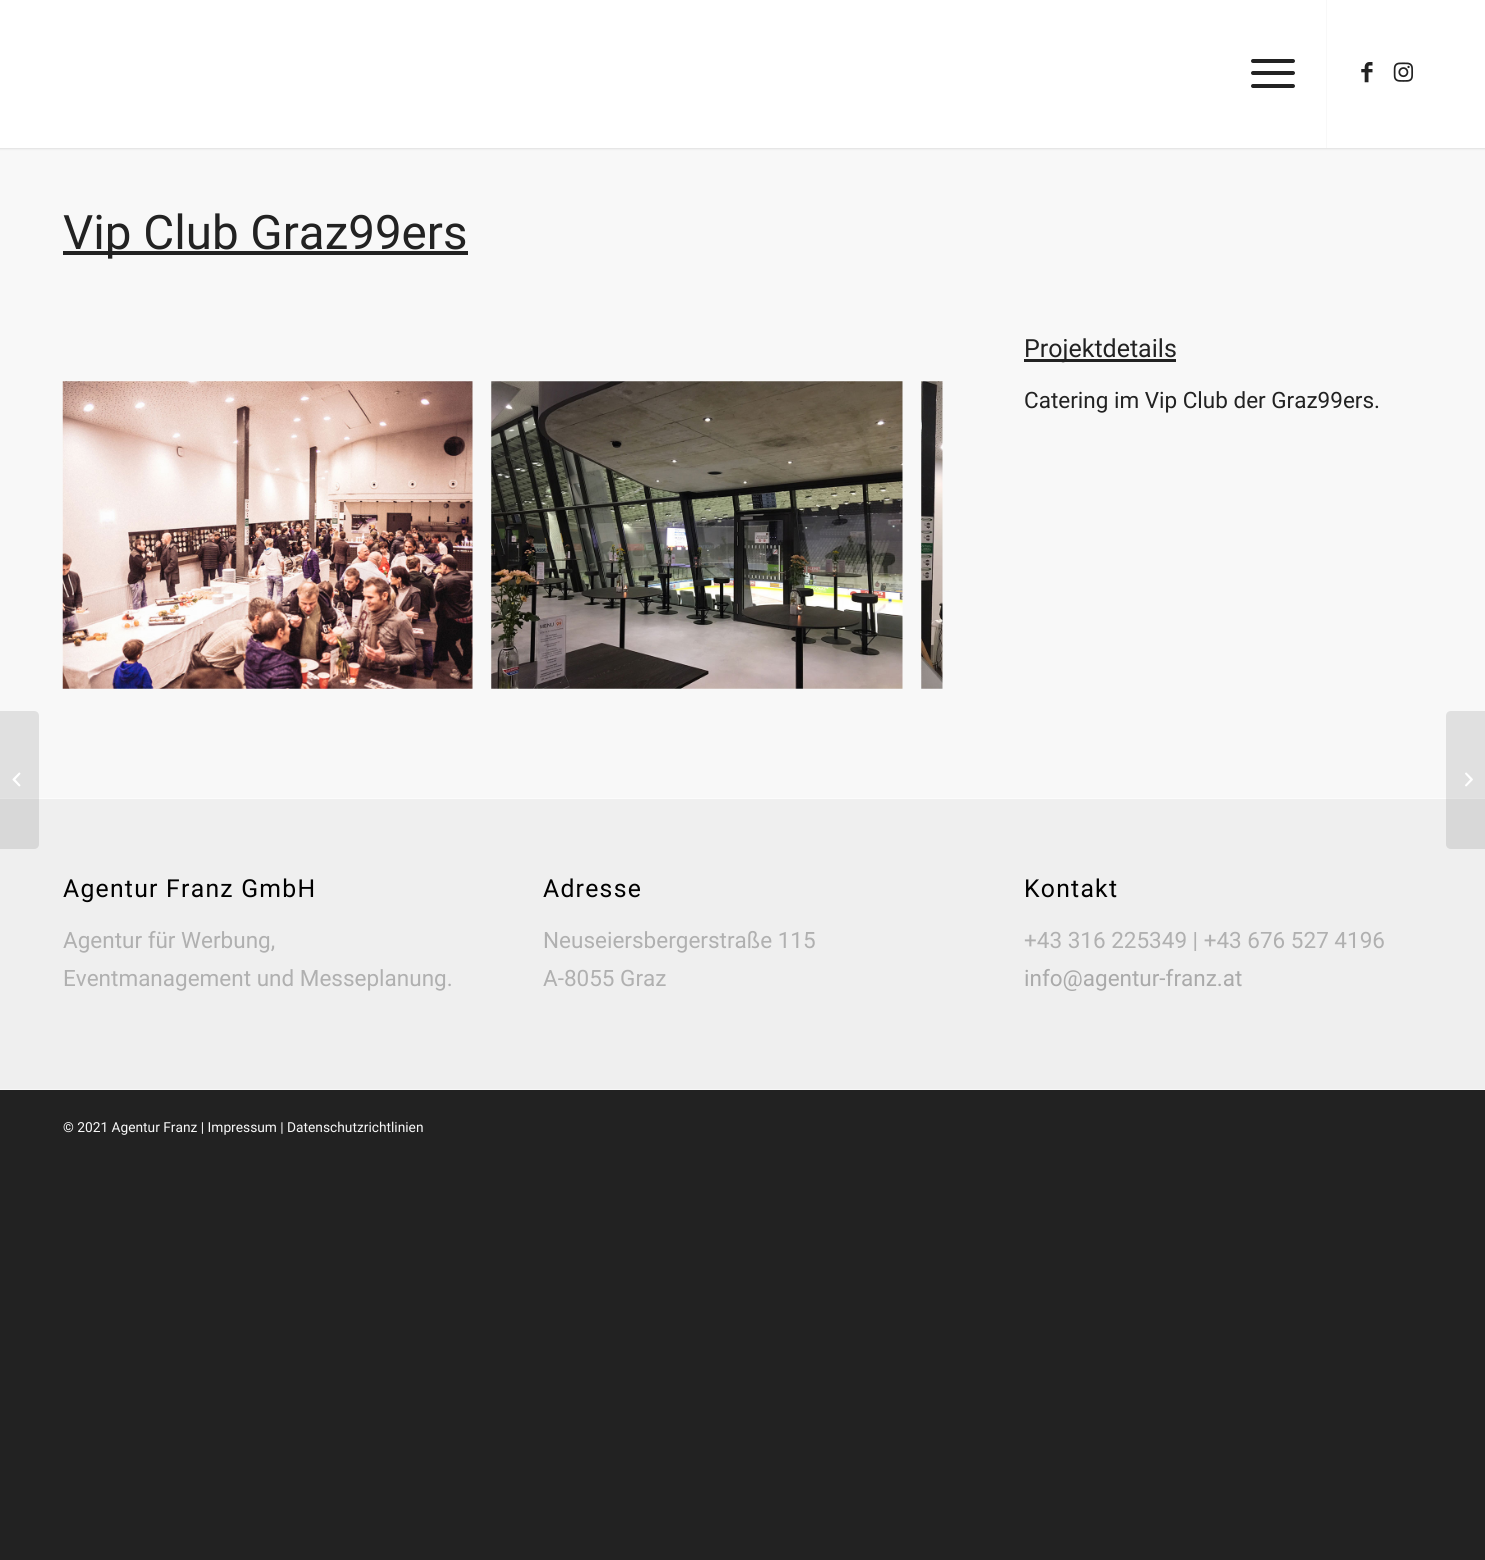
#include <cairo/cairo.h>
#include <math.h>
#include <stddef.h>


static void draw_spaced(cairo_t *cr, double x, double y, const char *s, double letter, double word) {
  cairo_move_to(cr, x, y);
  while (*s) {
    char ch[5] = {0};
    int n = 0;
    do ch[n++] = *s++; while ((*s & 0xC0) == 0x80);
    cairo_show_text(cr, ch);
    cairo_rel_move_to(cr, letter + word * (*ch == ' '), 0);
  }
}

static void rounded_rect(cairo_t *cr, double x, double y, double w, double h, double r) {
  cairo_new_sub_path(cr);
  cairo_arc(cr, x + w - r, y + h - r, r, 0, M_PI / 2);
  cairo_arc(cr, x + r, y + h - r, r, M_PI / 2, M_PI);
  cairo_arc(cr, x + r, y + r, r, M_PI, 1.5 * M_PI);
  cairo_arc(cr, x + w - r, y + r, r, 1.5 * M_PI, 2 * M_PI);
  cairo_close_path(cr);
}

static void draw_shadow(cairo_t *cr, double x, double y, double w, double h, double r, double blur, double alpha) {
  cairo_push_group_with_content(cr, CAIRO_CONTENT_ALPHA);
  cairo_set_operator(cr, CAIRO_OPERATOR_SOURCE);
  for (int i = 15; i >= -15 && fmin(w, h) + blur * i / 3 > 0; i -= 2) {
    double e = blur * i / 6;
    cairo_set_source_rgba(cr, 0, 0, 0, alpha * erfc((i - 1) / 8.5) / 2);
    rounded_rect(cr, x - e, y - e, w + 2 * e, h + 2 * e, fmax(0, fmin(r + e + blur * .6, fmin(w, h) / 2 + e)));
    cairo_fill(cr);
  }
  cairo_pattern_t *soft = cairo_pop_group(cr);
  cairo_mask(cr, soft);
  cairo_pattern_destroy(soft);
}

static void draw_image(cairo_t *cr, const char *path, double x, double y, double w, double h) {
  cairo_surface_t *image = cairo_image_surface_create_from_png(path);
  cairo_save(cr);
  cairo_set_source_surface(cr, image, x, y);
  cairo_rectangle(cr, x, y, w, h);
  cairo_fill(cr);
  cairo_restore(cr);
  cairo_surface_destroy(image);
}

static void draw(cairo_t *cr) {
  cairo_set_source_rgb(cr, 34 / 255.0, 34 / 255.0, 34 / 255.0);
  cairo_paint(cr);
  cairo_set_source_rgb(cr, 248 / 255.0, 248 / 255.0, 248 / 255.0);
  cairo_rectangle(cr, 0, 148, 1485, 650);
  cairo_fill(cr);
  cairo_set_source_rgb(cr, 0, 0, 0);
  draw_shadow(cr, -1, -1, 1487, 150, 0, 1, 0.1);
  cairo_set_source_rgb(cr, 1, 1, 1);
  cairo_rectangle(cr, 0, 0, 1485, 148);
  cairo_fill(cr);
  cairo_set_source_rgb(cr, 248 / 255.0, 248 / 255.0, 248 / 255.0);
  cairo_rectangle(cr, 1326, 0, 1, 148);
  cairo_fill(cr);
  cairo_set_source_rgb(cr, 34 / 255.0, 34 / 255.0, 34 / 255.0);
  rounded_rect(cr, 1251, 71, 44, 4, 2);
  cairo_fill(cr);
  rounded_rect(cr, 1251, 59, 44, 4, 2);
  cairo_fill(cr);
  rounded_rect(cr, 1251, 84, 44, 4, 2);
  cairo_fill(cr);
  draw_image(cr, "images/1.png", 1361, 62, 12, 21);
  draw_image(cr, "images/2.png", 1393, 62, 21, 20);
  cairo_set_source_rgb(cr, 239 / 255.0, 239 / 255.0, 239 / 255.0);
  cairo_rectangle(cr, 0, 799, 1485, 290);
  cairo_fill(cr);
  cairo_set_source_rgb(cr, 252 / 255.0, 252 / 255.0, 252 / 255.0);
  cairo_rectangle(cr, 0, 798, 1485, 1);
  cairo_fill(cr);
  cairo_set_source_rgba(cr, 0, 0, 0, 0.1);
  cairo_new_path(cr);
  cairo_move_to(cr, 0, 711);
  cairo_line_to(cr, 34, 711);
  cairo_curve_to(cr, 37, 711, 39, 713, 39, 716);
  cairo_line_to(cr, 39, 844);
  cairo_curve_to(cr, 39, 847, 37, 849, 34, 849);
  cairo_line_to(cr, 0, 849);
  cairo_close_path(cr);
  cairo_fill(cr);
  draw_image(cr, "images/3.png", 12, 772, 9, 15);
  cairo_set_source_rgb(cr, 34 / 255.0, 34 / 255.0, 34 / 255.0);
  cairo_rectangle(cr, 63, 251, 405, 4);
  cairo_fill(cr);
  draw_image(cr, "images/4.png", 62, 381, 411, 308);
  draw_image(cr, "images/5.png", 491, 381, 412, 308);
  draw_image(cr, "images/6.png", 921, 381, 22, 308);
  cairo_rectangle(cr, 1024, 359, 152, 3);
  cairo_fill(cr);
  cairo_set_source_rgb(cr, 248 / 255.0, 248 / 255.0, 248 / 255.0);
  cairo_rectangle(cr, 0, 1089, 1485, 1);
  cairo_fill(cr);
  cairo_set_source_rgba(cr, 0, 0, 0, 0.1);
  cairo_new_path(cr);
  cairo_move_to(cr, 1451, 711);
  cairo_line_to(cr, 1485, 711);
  cairo_line_to(cr, 1485, 849);
  cairo_line_to(cr, 1451, 849);
  cairo_curve_to(cr, 1448, 849, 1446, 847, 1446, 844);
  cairo_line_to(cr, 1446, 716);
  cairo_curve_to(cr, 1446, 713, 1448, 711, 1451, 711);
  cairo_close_path(cr);
  cairo_fill(cr);
  draw_image(cr, "images/7.png", 1465, 772, 8, 15);
  cairo_select_font_face(cr, "Roboto", CAIRO_FONT_SLANT_NORMAL, CAIRO_FONT_WEIGHT_NORMAL);
  cairo_set_font_size(cr, 47.5);
  cairo_set_source_rgb(cr, 34 / 255.0, 34 / 255.0, 34 / 255.0);
  cairo_move_to(cr, 63, 249);
  cairo_show_text(cr, "Vip Club Graz99ers");
  cairo_set_font_size(cr, 25);
  cairo_move_to(cr, 1024, 357);
  cairo_show_text(cr, "Projektdetails");
  cairo_set_font_size(cr, 22.5);
  cairo_move_to(cr, 1024, 408);
  cairo_show_text(cr, "Catering im Vip Club der Graz99ers.");
  cairo_set_font_size(cr, 24.75);
  cairo_set_source_rgb(cr, 0, 0, 0);
  draw_spaced(cr, 63, 897, "Agentur Franz GmbH", 1.25, 0);
  cairo_set_font_size(cr, 22.5);
  cairo_set_source_rgb(cr, 176 / 255.0, 176 / 255.0, 176 / 255.0);
  cairo_move_to(cr, 63, 948);
  cairo_show_text(cr, "Agentur für Werbung,");
  cairo_move_to(cr, 63, 986);
  cairo_show_text(cr, "Eventmanagement und Messeplanung.");
  cairo_set_font_size(cr, 24.75);
  cairo_set_source_rgb(cr, 0, 0, 0);
  draw_spaced(cr, 543, 897, "Adresse", 1.25, 0);
  cairo_set_font_size(cr, 22.5);
  cairo_set_source_rgb(cr, 176 / 255.0, 176 / 255.0, 176 / 255.0);
  cairo_move_to(cr, 543, 948);
  cairo_show_text(cr, "Neuseiersbergerstraße 115");
  cairo_move_to(cr, 543, 986);
  cairo_show_text(cr, "A-8055 Graz");
  cairo_set_font_size(cr, 24.75);
  cairo_set_source_rgb(cr, 0, 0, 0);
  draw_spaced(cr, 1024, 897, "Kontakt", 1.25, 0);
  cairo_set_font_size(cr, 22.5);
  cairo_set_source_rgb(cr, 176 / 255.0, 176 / 255.0, 176 / 255.0);
  cairo_move_to(cr, 1024, 948);
  cairo_show_text(cr, "+43 316 225349 | +43 676 527 4196");
  cairo_set_source_rgb(cr, 170 / 255.0, 170 / 255.0, 170 / 255.0);
  cairo_move_to(cr, 1024, 986);
  cairo_show_text(cr, "info@agentur-franz.at");
  cairo_set_font_size(cr, 13.75);
  cairo_set_source_rgb(cr, 248 / 255.0, 248 / 255.0, 248 / 255.0);
  cairo_move_to(cr, 63, 1132);
  cairo_show_text(cr, "© 2021 Agentur Franz | Impressum | Datenschutzrichtlinien");
}

int main(void) {
  cairo_surface_t *surface = cairo_image_surface_create(CAIRO_FORMAT_RGB24, 1485, 1560);
  cairo_t *cr = cairo_create(surface);
  cairo_font_options_t *options = cairo_font_options_create();
  cairo_font_options_set_hint_metrics(options, CAIRO_HINT_METRICS_OFF);
  cairo_font_options_set_hint_style(options, CAIRO_HINT_STYLE_NONE);
  cairo_set_font_options(cr, options);
  cairo_set_miter_limit(cr, 4);
  draw(cr);
  cairo_surface_write_to_png(surface, "out.png");
  cairo_font_options_destroy(options);
  cairo_destroy(cr);
  cairo_surface_destroy(surface);
  return 0;
}
